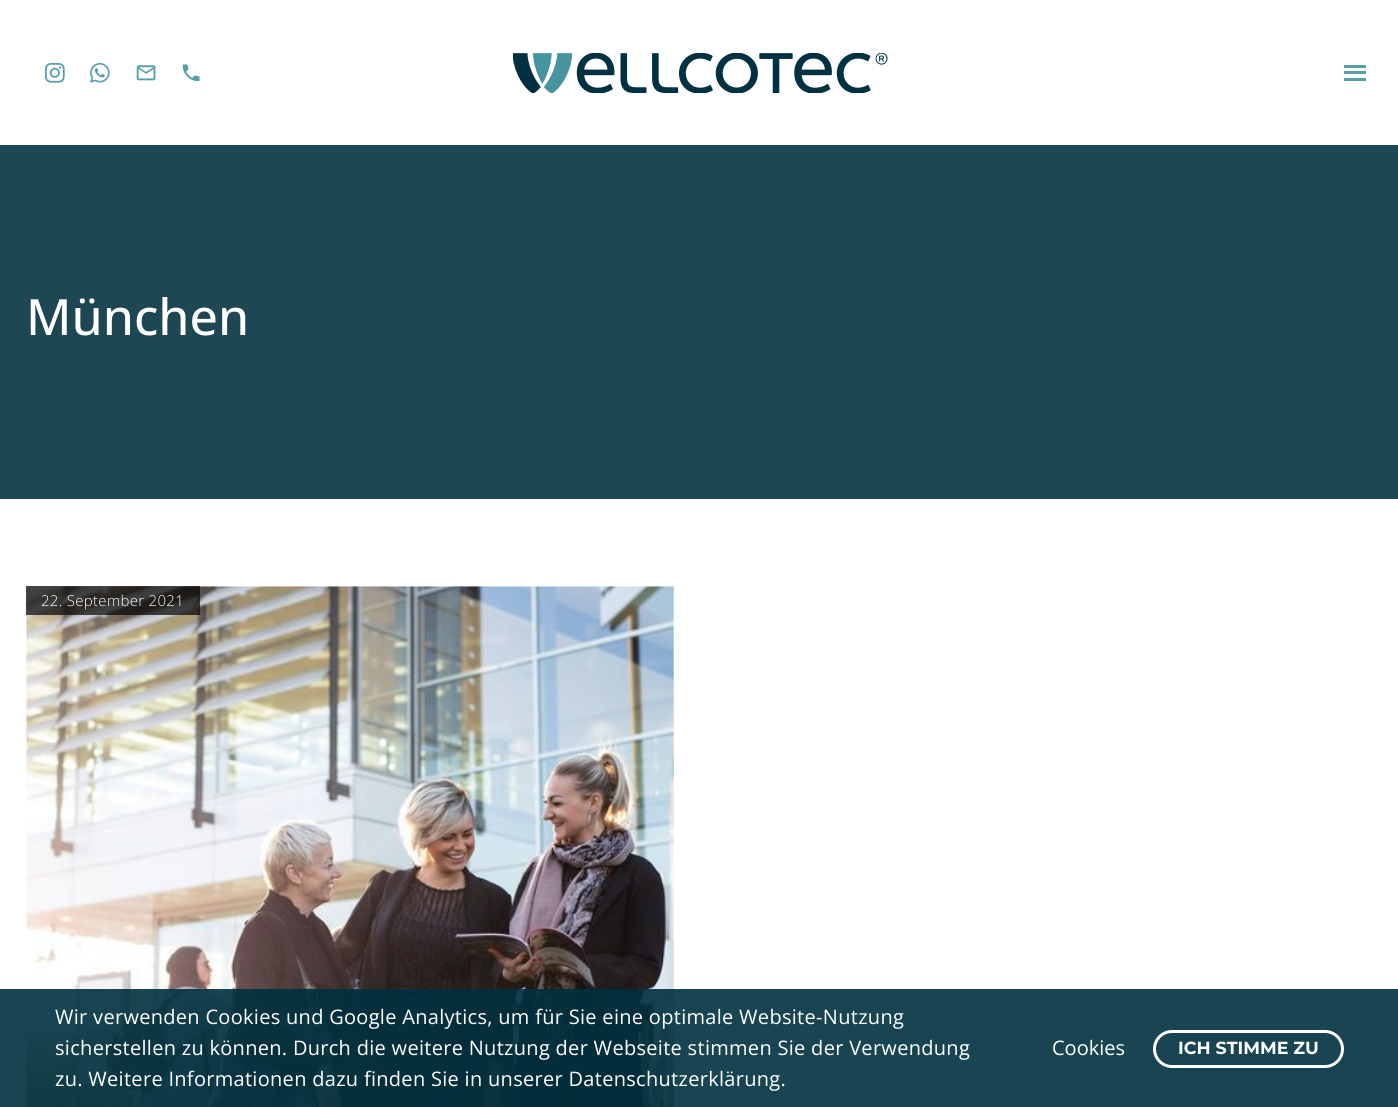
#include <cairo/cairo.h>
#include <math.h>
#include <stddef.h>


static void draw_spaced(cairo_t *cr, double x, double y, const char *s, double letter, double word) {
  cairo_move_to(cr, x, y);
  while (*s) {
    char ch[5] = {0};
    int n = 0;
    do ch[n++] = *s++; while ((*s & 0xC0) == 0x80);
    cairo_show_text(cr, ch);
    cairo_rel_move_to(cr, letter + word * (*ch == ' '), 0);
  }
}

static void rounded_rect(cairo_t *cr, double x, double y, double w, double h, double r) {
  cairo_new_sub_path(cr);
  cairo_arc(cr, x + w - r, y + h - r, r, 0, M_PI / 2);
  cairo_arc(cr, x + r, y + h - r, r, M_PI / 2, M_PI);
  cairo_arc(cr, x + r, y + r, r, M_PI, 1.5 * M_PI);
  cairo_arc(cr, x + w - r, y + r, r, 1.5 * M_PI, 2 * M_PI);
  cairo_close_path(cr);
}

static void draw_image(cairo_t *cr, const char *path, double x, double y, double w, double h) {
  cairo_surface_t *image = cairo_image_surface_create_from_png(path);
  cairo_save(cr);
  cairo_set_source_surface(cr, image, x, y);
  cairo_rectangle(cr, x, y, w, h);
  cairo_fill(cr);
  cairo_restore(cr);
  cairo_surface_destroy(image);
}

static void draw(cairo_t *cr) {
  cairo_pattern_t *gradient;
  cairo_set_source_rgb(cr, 1, 1, 1);
  cairo_paint(cr);
  draw_image(cr, "images/1.png", 45, 62, 20, 21);
  draw_image(cr, "images/2.png", 90, 63, 20, 20);
  draw_image(cr, "images/3.png", 136, 65, 20, 16);
  draw_image(cr, "images/4.png", 182, 64, 18, 18);
  draw_image(cr, "images/5.png", 513, 53, 375, 40);
  cairo_set_source_rgb(cr, 86 / 255.0, 158 / 255.0, 168 / 255.0);
  cairo_rectangle(cr, 1344, 65, 22, 3);
  cairo_fill(cr);
  cairo_rectangle(cr, 1344, 71, 22, 3);
  cairo_fill(cr);
  cairo_rectangle(cr, 1344, 78, 22, 3);
  cairo_fill(cr);
  cairo_set_source_rgb(cr, 28 / 255.0, 71 / 255.0, 83 / 255.0);
  cairo_rectangle(cr, 0, 145, 1398, 354);
  cairo_fill(cr);
  draw_image(cr, "images/6.png", 26, 586, 648, 521);
  cairo_set_source_rgba(cr, 0, 0, 0, 0.7);
  cairo_rectangle(cr, 26, 586, 174, 29);
  cairo_fill(cr);
  gradient = cairo_pattern_create_linear(350, 586, 350, 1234);
  cairo_pattern_add_color_stop_rgba(gradient, 0.65, 0, 0, 0, 0);
  cairo_pattern_add_color_stop_rgba(gradient, 1, 0, 0, 0, 0.5);
  cairo_set_source(cr, gradient);
  cairo_pattern_destroy(gradient);
  cairo_rectangle(cr, 26, 1017, 648, 90);
  cairo_fill(cr);
  cairo_set_source_rgba(cr, 0, 48 / 255.0, 62 / 255.0, 0.9);
  cairo_rectangle(cr, 0, 989, 1398, 118);
  cairo_fill(cr);
  rounded_rect(cr, 1154.5, 1031.5, 188, 35, 17.5);
  cairo_set_source_rgb(cr, 1, 1, 1);
  cairo_set_line_width(cr, 3);
  cairo_stroke(cr);
  cairo_select_font_face(cr, "Open Sans Medium", CAIRO_FONT_SLANT_NORMAL, CAIRO_FONT_WEIGHT_NORMAL);
  cairo_set_font_size(cr, 50);
  cairo_move_to(cr, 26, 335);
  cairo_show_text(cr, "München");
  cairo_select_font_face(cr, "Open Sans Light", CAIRO_FONT_SLANT_NORMAL, CAIRO_FONT_WEIGHT_NORMAL);
  cairo_set_font_size(cr, 15);
  draw_spaced(cr, 41, 606, "22. September 2021", 0.3, 0);
  cairo_select_font_face(cr, "Open Sans", CAIRO_FONT_SLANT_NORMAL, CAIRO_FONT_WEIGHT_NORMAL);
  cairo_set_font_size(cr, 20);
  draw_spaced(cr, 55, 1024, "Wir verwenden Cookies und Google Analytics, um für Sie eine optimale Website-Nutzung", 0.3, 0);
  draw_spaced(cr, 55, 1055, "sicherstellen zu können. Durch die weitere Nutzung der Webseite stimmen Sie der Verwendung", 0.3, 0);
  draw_spaced(cr, 55, 1086, "zu. Weitere Informationen dazu finden Sie in unserer Datenschutzerklärung.", 0.3, 0);
  cairo_move_to(cr, 1052, 1055);
  cairo_show_text(cr, "Cookies");
  cairo_select_font_face(cr, "Montserrat", CAIRO_FONT_SLANT_NORMAL, CAIRO_FONT_WEIGHT_BOLD);
  cairo_set_font_size(cr, 17.5);
  cairo_move_to(cr, 1178, 1054);
  cairo_show_text(cr, "ICH STIMME ZU");
}

int main(void) {
  cairo_surface_t *surface = cairo_image_surface_create(CAIRO_FORMAT_RGB24, 1398, 1107);
  cairo_t *cr = cairo_create(surface);
  cairo_font_options_t *options = cairo_font_options_create();
  cairo_font_options_set_hint_metrics(options, CAIRO_HINT_METRICS_OFF);
  cairo_font_options_set_hint_style(options, CAIRO_HINT_STYLE_NONE);
  cairo_set_font_options(cr, options);
  cairo_set_miter_limit(cr, 4);
  draw(cr);
  cairo_surface_write_to_png(surface, "out.png");
  cairo_font_options_destroy(options);
  cairo_destroy(cr);
  cairo_surface_destroy(surface);
  return 0;
}
